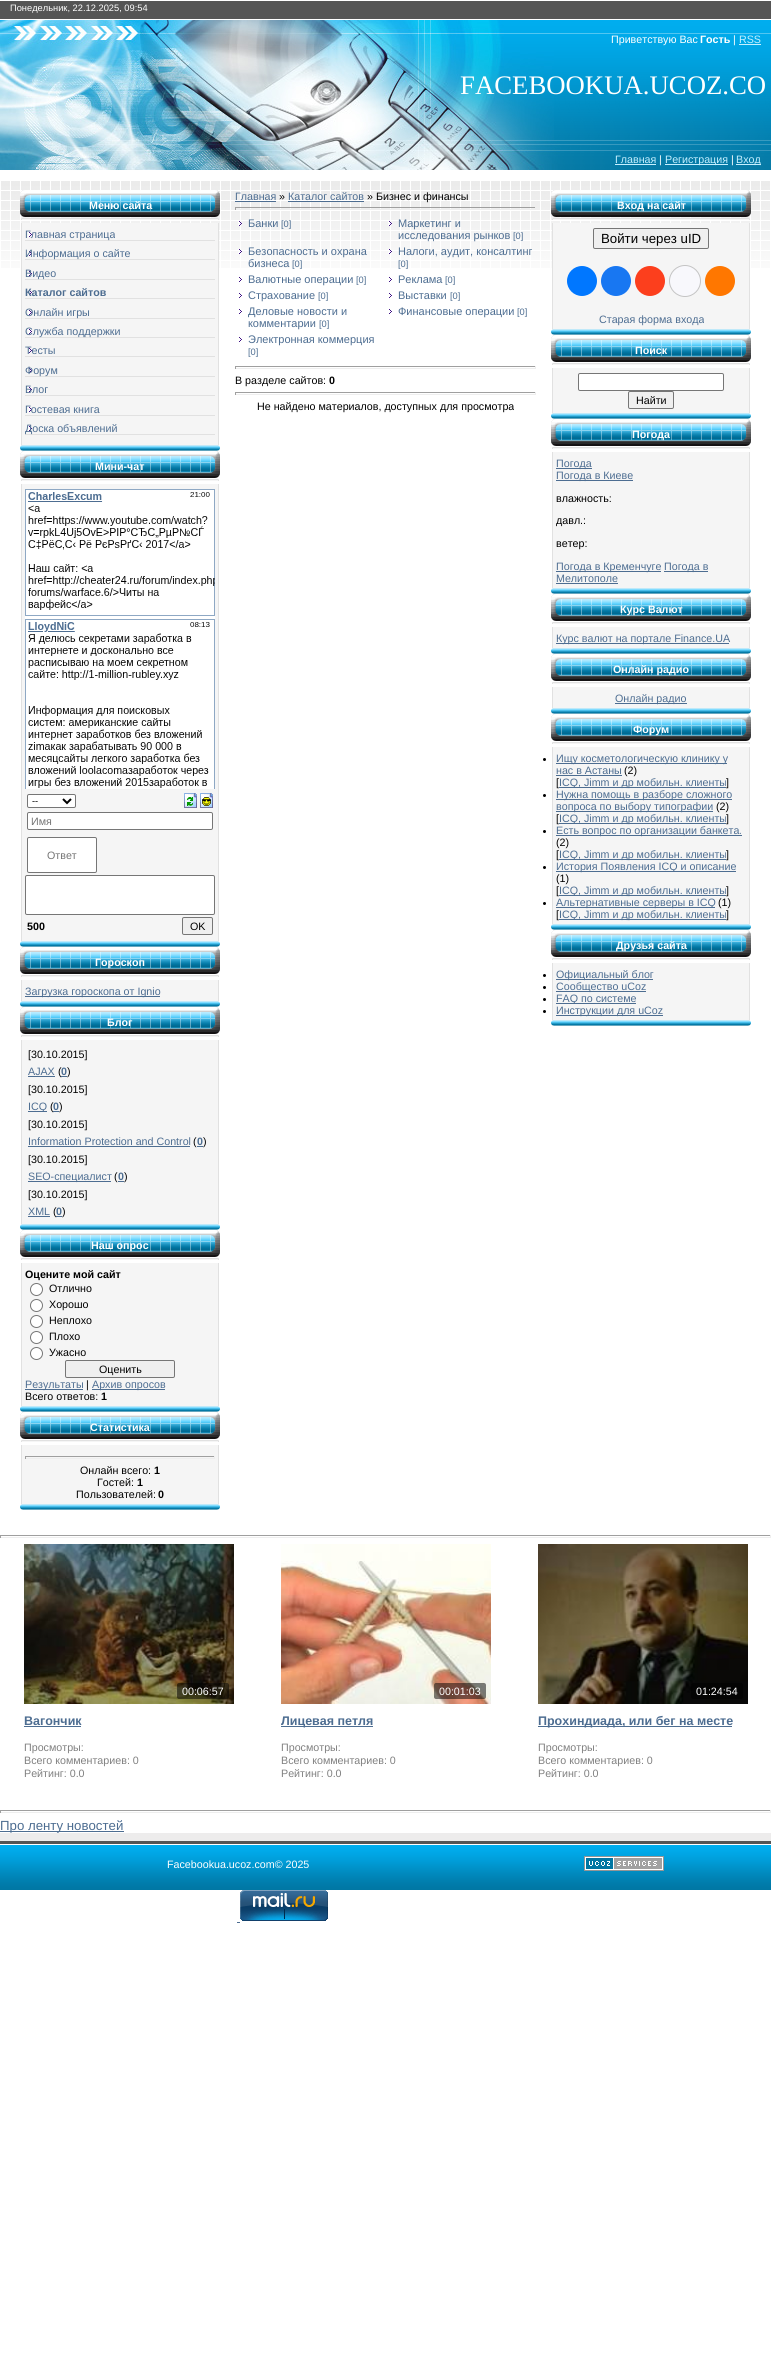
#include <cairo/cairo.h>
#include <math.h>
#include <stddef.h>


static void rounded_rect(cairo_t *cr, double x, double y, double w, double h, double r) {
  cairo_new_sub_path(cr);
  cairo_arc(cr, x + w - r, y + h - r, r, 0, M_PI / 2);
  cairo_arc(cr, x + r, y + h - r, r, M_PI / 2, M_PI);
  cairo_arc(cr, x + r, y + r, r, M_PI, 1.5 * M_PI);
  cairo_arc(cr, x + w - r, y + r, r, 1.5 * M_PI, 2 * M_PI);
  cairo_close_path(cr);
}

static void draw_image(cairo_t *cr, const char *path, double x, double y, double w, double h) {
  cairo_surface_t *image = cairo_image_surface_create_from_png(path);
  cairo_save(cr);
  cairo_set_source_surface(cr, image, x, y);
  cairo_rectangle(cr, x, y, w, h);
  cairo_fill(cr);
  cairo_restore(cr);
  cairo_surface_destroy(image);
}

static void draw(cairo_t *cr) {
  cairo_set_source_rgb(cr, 1, 1, 1);
  cairo_paint(cr);
  draw_image(cr, "images/1.png", 0, 1, 771, 267);
  draw_image(cr, "images/2.png", 0, 20, 504, 30);
  cairo_set_source_rgb(cr, 197 / 255.0, 240 / 255.0, 1);
  cairo_rectangle(cr, 739, 44, 22, 1);
  cairo_fill(cr);
  draw_image(cr, "images/3.png", 0, 50, 554, 90);
  draw_image(cr, "images/4.png", 0, 140, 560, 30);
  cairo_rectangle(cr, 615, 164, 41, 1);
  cairo_fill(cr);
  cairo_rectangle(cr, 665, 164, 63, 1);
  cairo_fill(cr);
  cairo_rectangle(cr, 736, 164, 25, 1);
  cairo_fill(cr);
  draw_image(cr, "images/5.png", 20, 190, 200, 30);
  draw_image(cr, "images/6.png", 20, 223, 200, 228);
  draw_image(cr, "images/7.png", 28, 232, 4, 5);
  cairo_set_source_rgb(cr, 225 / 255.0, 225 / 255.0, 225 / 255.0);
  cairo_rectangle(cr, 25, 240, 190, 1);
  cairo_fill(cr);
  draw_image(cr, "images/7.png", 28, 251, 4, 5);
  cairo_rectangle(cr, 25, 259, 190, 1);
  cairo_fill(cr);
  draw_image(cr, "images/7.png", 28, 271, 4, 5);
  cairo_rectangle(cr, 25, 279, 190, 1);
  cairo_fill(cr);
  draw_image(cr, "images/7.png", 28, 290, 4, 5);
  cairo_rectangle(cr, 25, 298, 190, 1);
  cairo_fill(cr);
  draw_image(cr, "images/7.png", 28, 310, 4, 5);
  cairo_rectangle(cr, 25, 318, 190, 1);
  cairo_fill(cr);
  draw_image(cr, "images/7.png", 28, 329, 4, 5);
  cairo_rectangle(cr, 25, 337, 190, 1);
  cairo_fill(cr);
  draw_image(cr, "images/7.png", 28, 348, 4, 5);
  cairo_rectangle(cr, 25, 356, 190, 1);
  cairo_fill(cr);
  draw_image(cr, "images/7.png", 28, 368, 4, 5);
  cairo_rectangle(cr, 25, 376, 190, 1);
  cairo_fill(cr);
  draw_image(cr, "images/7.png", 28, 387, 4, 5);
  cairo_rectangle(cr, 25, 395, 190, 1);
  cairo_fill(cr);
  draw_image(cr, "images/7.png", 28, 407, 4, 5);
  cairo_rectangle(cr, 25, 415, 190, 1);
  cairo_fill(cr);
  draw_image(cr, "images/7.png", 28, 426, 4, 5);
  cairo_rectangle(cr, 25, 434, 190, 1);
  cairo_fill(cr);
  draw_image(cr, "images/8.png", 20, 451, 200, 30);
  draw_image(cr, "images/9.png", 20, 484, 200, 463);
  draw_image(cr, "images/10.png", 25, 489, 190, 300);
  cairo_set_source_rgb(cr, 1, 1, 1);
  rounded_rect(cr, 27.5, 794.5, 48, 13, 1.5);
  cairo_fill_preserve(cr);
  cairo_set_source_rgb(cr, 118 / 255.0, 118 / 255.0, 118 / 255.0);
  cairo_set_line_width(cr, 1);
  cairo_stroke(cr);
  cairo_new_path(cr);
  cairo_move_to(cr, 63, 799);
  cairo_line_to(cr, 67, 803);
  cairo_line_to(cr, 71, 799);
  cairo_set_source_rgb(cr, 0, 0, 0);
  cairo_set_line_width(cr, 2);
  cairo_stroke(cr);
  draw_image(cr, "images/11.png", 184, 793, 13, 15);
  draw_image(cr, "images/12.png", 200, 793, 13, 15);
  cairo_set_source_rgb(cr, 1, 1, 1);
  rounded_rect(cr, 27.5, 812.5, 185, 17, 1.5);
  cairo_fill_preserve(cr);
  cairo_set_source_rgb(cr, 118 / 255.0, 118 / 255.0, 118 / 255.0);
  cairo_set_line_width(cr, 1);
  cairo_stroke(cr);
  cairo_set_source_rgb(cr, 1, 1, 1);
  rounded_rect(cr, 27.5, 837.5, 69, 35, 1.5);
  cairo_fill_preserve(cr);
  cairo_set_source_rgb(cr, 118 / 255.0, 118 / 255.0, 118 / 255.0);
  cairo_stroke(cr);
  cairo_set_source_rgb(cr, 1, 1, 1);
  rounded_rect(cr, 25.5, 875.5, 189, 39, 1.5);
  cairo_fill_preserve(cr);
  cairo_set_source_rgb(cr, 118 / 255.0, 118 / 255.0, 118 / 255.0);
  cairo_stroke(cr);
  cairo_set_source_rgb(cr, 239 / 255.0, 239 / 255.0, 239 / 255.0);
  rounded_rect(cr, 182.5, 917.5, 30, 17, 1.5);
  cairo_fill_preserve(cr);
  cairo_set_source_rgb(cr, 118 / 255.0, 118 / 255.0, 118 / 255.0);
  cairo_stroke(cr);
  draw_image(cr, "images/8.png", 20, 947, 200, 30);
  draw_image(cr, "images/13.png", 20, 980, 200, 27);
  cairo_set_source_rgb(cr, 77 / 255.0, 109 / 255.0, 145 / 255.0);
  cairo_rectangle(cr, 25, 996, 135, 1);
  cairo_fill(cr);
  draw_image(cr, "images/8.png", 20, 1007, 200, 30);
  draw_image(cr, "images/14.png", 20, 1040, 200, 190);
  cairo_rectangle(cr, 28, 1076, 27, 1);
  cairo_fill(cr);
  cairo_rectangle(cr, 28, 1111, 19, 1);
  cairo_fill(cr);
  cairo_rectangle(cr, 28, 1146, 162, 1);
  cairo_fill(cr);
  cairo_rectangle(cr, 197, 1146, 6, 1);
  cairo_fill(cr);
  cairo_rectangle(cr, 28, 1181, 83, 1);
  cairo_fill(cr);
  cairo_rectangle(cr, 118, 1181, 6, 1);
  cairo_fill(cr);
  cairo_rectangle(cr, 28, 1216, 22, 1);
  cairo_fill(cr);
  draw_image(cr, "images/8.png", 20, 1230, 200, 30);
  draw_image(cr, "images/15.png", 20, 1263, 200, 149);
  cairo_set_source_rgb(cr, 1, 1, 1);
  cairo_arc(cr, 36.5, 1289.5, 6, 0, 2 * M_PI);
  cairo_fill_preserve(cr);
  cairo_set_source_rgb(cr, 118 / 255.0, 118 / 255.0, 118 / 255.0);
  cairo_stroke(cr);
  cairo_set_source_rgb(cr, 1, 1, 1);
  cairo_arc(cr, 36.5, 1305.5, 6, 0, 2 * M_PI);
  cairo_fill_preserve(cr);
  cairo_set_source_rgb(cr, 118 / 255.0, 118 / 255.0, 118 / 255.0);
  cairo_stroke(cr);
  cairo_set_source_rgb(cr, 1, 1, 1);
  cairo_arc(cr, 36.5, 1321.5, 6, 0, 2 * M_PI);
  cairo_fill_preserve(cr);
  cairo_set_source_rgb(cr, 118 / 255.0, 118 / 255.0, 118 / 255.0);
  cairo_stroke(cr);
  cairo_set_source_rgb(cr, 1, 1, 1);
  cairo_arc(cr, 36.5, 1337.5, 6, 0, 2 * M_PI);
  cairo_fill_preserve(cr);
  cairo_set_source_rgb(cr, 118 / 255.0, 118 / 255.0, 118 / 255.0);
  cairo_stroke(cr);
  cairo_set_source_rgb(cr, 1, 1, 1);
  cairo_arc(cr, 36.5, 1353.5, 6, 0, 2 * M_PI);
  cairo_fill_preserve(cr);
  cairo_set_source_rgb(cr, 118 / 255.0, 118 / 255.0, 118 / 255.0);
  cairo_stroke(cr);
  cairo_set_source_rgb(cr, 239 / 255.0, 239 / 255.0, 239 / 255.0);
  rounded_rect(cr, 65.5, 1360.5, 109, 17, 1.5);
  cairo_fill_preserve(cr);
  cairo_set_source_rgb(cr, 118 / 255.0, 118 / 255.0, 118 / 255.0);
  cairo_stroke(cr);
  cairo_set_source_rgb(cr, 77 / 255.0, 109 / 255.0, 145 / 255.0);
  cairo_rectangle(cr, 25, 1389, 58, 1);
  cairo_fill(cr);
  cairo_rectangle(cr, 92, 1389, 73, 1);
  cairo_fill(cr);
  draw_image(cr, "images/8.png", 20, 1412, 200, 30);
  draw_image(cr, "images/16.png", 20, 1445, 200, 65);
  cairo_set_source_rgb(cr, 159 / 255.0, 159 / 255.0, 159 / 255.0);
  cairo_rectangle(cr, 25, 1456, 190, 1);
  cairo_fill(cr);
  cairo_set_source_rgb(cr, 238 / 255.0, 238 / 255.0, 238 / 255.0);
  cairo_rectangle(cr, 214, 1456, 1, 3);
  cairo_fill(cr);
  cairo_rectangle(cr, 25, 1458, 190, 1);
  cairo_fill(cr);
  cairo_set_source_rgb(cr, 159 / 255.0, 159 / 255.0, 159 / 255.0);
  cairo_rectangle(cr, 25, 1456, 1, 3);
  cairo_fill(cr);
  cairo_set_source_rgb(cr, 77 / 255.0, 109 / 255.0, 145 / 255.0);
  cairo_rectangle(cr, 235, 201, 41, 1);
  cairo_fill(cr);
  cairo_rectangle(cr, 288, 201, 76, 1);
  cairo_fill(cr);
  cairo_set_source_rgb(cr, 159 / 255.0, 159 / 255.0, 159 / 255.0);
  cairo_rectangle(cr, 235, 207, 301, 1);
  cairo_fill(cr);
  cairo_set_source_rgb(cr, 238 / 255.0, 238 / 255.0, 238 / 255.0);
  cairo_rectangle(cr, 535, 207, 1, 3);
  cairo_fill(cr);
  cairo_rectangle(cr, 235, 209, 301, 1);
  cairo_fill(cr);
  cairo_set_source_rgb(cr, 159 / 255.0, 159 / 255.0, 159 / 255.0);
  cairo_rectangle(cr, 235, 207, 1, 3);
  cairo_fill(cr);
  draw_image(cr, "images/17.png", 238, 221, 4, 5);
  draw_image(cr, "images/17.png", 388, 221, 4, 5);
  draw_image(cr, "images/18.png", 238, 249, 4, 5);
  draw_image(cr, "images/18.png", 388, 249, 4, 5);
  draw_image(cr, "images/19.png", 239, 277, 3, 5);
  draw_image(cr, "images/19.png", 389, 277, 3, 5);
  draw_image(cr, "images/19.png", 239, 293, 3, 5);
  draw_image(cr, "images/19.png", 389, 293, 3, 5);
  draw_image(cr, "images/19.png", 239, 309, 3, 5);
  draw_image(cr, "images/19.png", 389, 309, 3, 5);
  draw_image(cr, "images/19.png", 239, 337, 3, 5);
  cairo_rectangle(cr, 235, 366, 301, 1);
  cairo_fill(cr);
  cairo_set_source_rgb(cr, 238 / 255.0, 238 / 255.0, 238 / 255.0);
  cairo_rectangle(cr, 535, 366, 1, 3);
  cairo_fill(cr);
  cairo_rectangle(cr, 235, 368, 301, 1);
  cairo_fill(cr);
  cairo_set_source_rgb(cr, 159 / 255.0, 159 / 255.0, 159 / 255.0);
  cairo_rectangle(cr, 235, 366, 1, 3);
  cairo_fill(cr);
  cairo_rectangle(cr, 235, 392, 301, 1);
  cairo_fill(cr);
  cairo_set_source_rgb(cr, 238 / 255.0, 238 / 255.0, 238 / 255.0);
  cairo_rectangle(cr, 535, 392, 1, 3);
  cairo_fill(cr);
  cairo_rectangle(cr, 235, 394, 301, 1);
  cairo_fill(cr);
  cairo_set_source_rgb(cr, 159 / 255.0, 159 / 255.0, 159 / 255.0);
  cairo_rectangle(cr, 235, 392, 1, 3);
  cairo_fill(cr);
  draw_image(cr, "images/20.png", 551, 190, 200, 30);
  draw_image(cr, "images/21.png", 551, 223, 200, 112);
  cairo_set_source_rgb(cr, 239 / 255.0, 239 / 255.0, 239 / 255.0);
  rounded_rect(cr, 593.5, 228.5, 115, 20, 1.5);
  cairo_fill_preserve(cr);
  cairo_set_source_rgb(cr, 118 / 255.0, 118 / 255.0, 118 / 255.0);
  cairo_stroke(cr);
  cairo_set_source_rgb(cr, 0, 119 / 255.0, 1);
  cairo_arc(cr, 582, 281, 15, 0, 2 * M_PI);
  cairo_fill(cr);
  cairo_set_source_rgb(cr, 24 / 255.0, 119 / 255.0, 242 / 255.0);
  cairo_arc(cr, 616, 281, 15, 0, 2 * M_PI);
  cairo_fill(cr);
  cairo_set_source_rgb(cr, 252 / 255.0, 63 / 255.0, 29 / 255.0);
  cairo_arc(cr, 650, 281, 15, 0, 2 * M_PI);
  cairo_fill(cr);
  cairo_set_source_rgb(cr, 248 / 255.0, 248 / 255.0, 252 / 255.0);
  cairo_arc(cr, 685, 281, 15.5, 0, 2 * M_PI);
  cairo_fill_preserve(cr);
  cairo_set_source_rgb(cr, 196 / 255.0, 196 / 255.0, 196 / 255.0);
  cairo_stroke(cr);
  cairo_set_source_rgb(cr, 1, 119 / 255.0, 0);
  cairo_arc(cr, 720, 281, 15, 0, 2 * M_PI);
  cairo_fill(cr);
  draw_image(cr, "images/8.png", 551, 335, 200, 30);
  draw_image(cr, "images/22.png", 551, 368, 200, 51);
  cairo_set_source_rgb(cr, 1, 1, 1);
  rounded_rect(cr, 578.5, 373.5, 145, 17, 1.5);
  cairo_fill_preserve(cr);
  cairo_set_source_rgb(cr, 118 / 255.0, 118 / 255.0, 118 / 255.0);
  cairo_stroke(cr);
  cairo_set_source_rgb(cr, 239 / 255.0, 239 / 255.0, 239 / 255.0);
  rounded_rect(cr, 628.5, 391.5, 45, 17, 1.5);
  cairo_fill_preserve(cr);
  cairo_set_source_rgb(cr, 118 / 255.0, 118 / 255.0, 118 / 255.0);
  cairo_stroke(cr);
  draw_image(cr, "images/8.png", 551, 419, 200, 30);
  draw_image(cr, "images/23.png", 551, 452, 200, 142);
  cairo_set_source_rgb(cr, 77 / 255.0, 109 / 255.0, 145 / 255.0);
  cairo_rectangle(cr, 556, 468, 36, 1);
  cairo_fill(cr);
  cairo_rectangle(cr, 556, 480, 77, 1);
  cairo_fill(cr);
  cairo_rectangle(cr, 556, 571, 105, 1);
  cairo_fill(cr);
  cairo_rectangle(cr, 664, 571, 44, 1);
  cairo_fill(cr);
  cairo_rectangle(cr, 556, 583, 62, 1);
  cairo_fill(cr);
  draw_image(cr, "images/8.png", 551, 594, 200, 30);
  draw_image(cr, "images/13.png", 551, 627, 200, 27);
  cairo_rectangle(cr, 556, 643, 173, 1);
  cairo_fill(cr);
  draw_image(cr, "images/8.png", 551, 654, 200, 30);
  draw_image(cr, "images/13.png", 551, 687, 200, 27);
  cairo_rectangle(cr, 615, 703, 72, 1);
  cairo_fill(cr);
  draw_image(cr, "images/8.png", 551, 714, 200, 30);
  draw_image(cr, "images/24.png", 551, 747, 200, 183);
  cairo_set_source_rgb(cr, 0, 0, 0);
  cairo_arc(cr, 544.5, 759.5, 1.5, 0, 2 * M_PI);
  cairo_fill(cr);
  cairo_set_source_rgb(cr, 77 / 255.0, 109 / 255.0, 145 / 255.0);
  cairo_rectangle(cr, 556, 763, 171, 1);
  cairo_fill(cr);
  cairo_rectangle(cr, 556, 775, 66, 1);
  cairo_fill(cr);
  cairo_rectangle(cr, 559, 787, 167, 1);
  cairo_fill(cr);
  cairo_set_source_rgb(cr, 0, 0, 0);
  cairo_arc(cr, 544.5, 795.5, 1.5, 0, 2 * M_PI);
  cairo_fill(cr);
  cairo_set_source_rgb(cr, 77 / 255.0, 109 / 255.0, 145 / 255.0);
  cairo_rectangle(cr, 556, 799, 176, 1);
  cairo_fill(cr);
  cairo_rectangle(cr, 556, 811, 157, 1);
  cairo_fill(cr);
  cairo_rectangle(cr, 559, 823, 167, 1);
  cairo_fill(cr);
  cairo_set_source_rgb(cr, 0, 0, 0);
  cairo_arc(cr, 544.5, 831.5, 1.5, 0, 2 * M_PI);
  cairo_fill(cr);
  cairo_set_source_rgb(cr, 77 / 255.0, 109 / 255.0, 145 / 255.0);
  cairo_rectangle(cr, 556, 835, 186, 1);
  cairo_fill(cr);
  cairo_rectangle(cr, 559, 859, 167, 1);
  cairo_fill(cr);
  cairo_set_source_rgb(cr, 0, 0, 0);
  cairo_arc(cr, 544.5, 867.5, 1.5, 0, 2 * M_PI);
  cairo_fill(cr);
  cairo_set_source_rgb(cr, 77 / 255.0, 109 / 255.0, 145 / 255.0);
  cairo_rectangle(cr, 556, 871, 180, 1);
  cairo_fill(cr);
  cairo_rectangle(cr, 559, 895, 167, 1);
  cairo_fill(cr);
  cairo_set_source_rgb(cr, 0, 0, 0);
  cairo_arc(cr, 544.5, 903.5, 1.5, 0, 2 * M_PI);
  cairo_fill(cr);
  cairo_set_source_rgb(cr, 77 / 255.0, 109 / 255.0, 145 / 255.0);
  cairo_rectangle(cr, 556, 907, 159, 1);
  cairo_fill(cr);
  cairo_rectangle(cr, 559, 919, 167, 1);
  cairo_fill(cr);
  draw_image(cr, "images/8.png", 551, 930, 200, 30);
  draw_image(cr, "images/25.png", 551, 963, 200, 63);
  cairo_set_source_rgb(cr, 0, 0, 0);
  cairo_arc(cr, 544.5, 975.5, 1.5, 0, 2 * M_PI);
  cairo_fill(cr);
  cairo_set_source_rgb(cr, 77 / 255.0, 109 / 255.0, 145 / 255.0);
  cairo_rectangle(cr, 556, 979, 97, 1);
  cairo_fill(cr);
  cairo_set_source_rgb(cr, 0, 0, 0);
  cairo_arc(cr, 544.5, 987.5, 1.5, 0, 2 * M_PI);
  cairo_fill(cr);
  cairo_set_source_rgb(cr, 77 / 255.0, 109 / 255.0, 145 / 255.0);
  cairo_rectangle(cr, 556, 991, 90, 1);
  cairo_fill(cr);
  cairo_set_source_rgb(cr, 0, 0, 0);
  cairo_arc(cr, 544.5, 999.5, 1.5, 0, 2 * M_PI);
  cairo_fill(cr);
  cairo_set_source_rgb(cr, 77 / 255.0, 109 / 255.0, 145 / 255.0);
  cairo_rectangle(cr, 556, 1003, 80, 1);
  cairo_fill(cr);
  cairo_set_source_rgb(cr, 0, 0, 0);
  cairo_arc(cr, 544.5, 1011.5, 1.5, 0, 2 * M_PI);
  cairo_fill(cr);
  cairo_set_source_rgb(cr, 77 / 255.0, 109 / 255.0, 145 / 255.0);
  cairo_rectangle(cr, 556, 1015, 107, 1);
  cairo_fill(cr);
  cairo_set_source_rgb(cr, 159 / 255.0, 159 / 255.0, 159 / 255.0);
  cairo_rectangle(cr, 0, 1535, 771, 1);
  cairo_fill(cr);
  cairo_set_source_rgb(cr, 238 / 255.0, 238 / 255.0, 238 / 255.0);
  cairo_rectangle(cr, 770, 1535, 1, 3);
  cairo_fill(cr);
  cairo_rectangle(cr, 0, 1537, 771, 1);
  cairo_fill(cr);
  cairo_set_source_rgb(cr, 159 / 255.0, 159 / 255.0, 159 / 255.0);
  cairo_rectangle(cr, 0, 1535, 1, 3);
  cairo_fill(cr);
  draw_image(cr, "images/26.png", 24, 1544, 210, 160);
  cairo_set_source_rgba(cr, 0, 0, 0, 0.5);
  rounded_rect(cr, 177, 1683, 52, 16, 2);
  cairo_fill(cr);
  cairo_set_source_rgb(cr, 77 / 255.0, 109 / 255.0, 145 / 255.0);
  cairo_rectangle(cr, 24, 1726, 57, 1);
  cairo_fill(cr);
  draw_image(cr, "images/27.png", 281, 1544, 210, 160);
  cairo_set_source_rgba(cr, 0, 0, 0, 0.5);
  rounded_rect(cr, 434, 1683, 52, 16, 2);
  cairo_fill(cr);
  cairo_set_source_rgb(cr, 77 / 255.0, 109 / 255.0, 145 / 255.0);
  cairo_rectangle(cr, 281, 1726, 92, 1);
  cairo_fill(cr);
  draw_image(cr, "images/28.png", 538, 1544, 210, 160);
  cairo_set_source_rgba(cr, 0, 0, 0, 0.5);
  rounded_rect(cr, 691, 1683, 52, 16, 2);
  cairo_fill(cr);
  cairo_set_source_rgb(cr, 77 / 255.0, 109 / 255.0, 145 / 255.0);
  cairo_rectangle(cr, 538, 1726, 194, 1);
  cairo_fill(cr);
  cairo_set_source_rgb(cr, 159 / 255.0, 159 / 255.0, 159 / 255.0);
  cairo_rectangle(cr, 0, 1810, 771, 1);
  cairo_fill(cr);
  cairo_set_source_rgb(cr, 238 / 255.0, 238 / 255.0, 238 / 255.0);
  cairo_rectangle(cr, 770, 1810, 1, 3);
  cairo_fill(cr);
  cairo_rectangle(cr, 0, 1812, 771, 1);
  cairo_fill(cr);
  cairo_set_source_rgb(cr, 159 / 255.0, 159 / 255.0, 159 / 255.0);
  cairo_rectangle(cr, 0, 1810, 1, 3);
  cairo_fill(cr);
  cairo_set_source_rgb(cr, 77 / 255.0, 109 / 255.0, 145 / 255.0);
  cairo_rectangle(cr, 0, 1831, 124, 1);
  cairo_fill(cr);
  draw_image(cr, "images/29.png", 0, 1833, 771, 57);
  draw_image(cr, "images/30.png", 584, 1856, 80, 15);
  draw_image(cr, "images/31.png", 240, 1890, 88, 31);
  cairo_rectangle(cr, 237, 1922, 3, 1);
  cairo_fill(cr);
  cairo_select_font_face(cr, "Liberation Sans", CAIRO_FONT_SLANT_NORMAL, CAIRO_FONT_WEIGHT_NORMAL);
  cairo_set_font_size(cr, 9.3);
  cairo_set_source_rgb(cr, 1, 1, 1);
  cairo_move_to(cr, 10, 11);
  cairo_show_text(cr, "Понедельник, 22.12.2025, 09:54");
  cairo_set_font_size(cr, 10.7);
  cairo_move_to(cr, 611, 43);
  cairo_show_text(cr, "Приветствую Вас");
  cairo_select_font_face(cr, "Liberation Sans", CAIRO_FONT_SLANT_NORMAL, CAIRO_FONT_WEIGHT_BOLD);
  cairo_move_to(cr, 700, 43);
  cairo_show_text(cr, "Гость");
  cairo_select_font_face(cr, "Liberation Sans", CAIRO_FONT_SLANT_NORMAL, CAIRO_FONT_WEIGHT_NORMAL);
  cairo_move_to(cr, 733, 43);
  cairo_show_text(cr, "|");
  cairo_set_source_rgb(cr, 197 / 255.0, 240 / 255.0, 1);
  cairo_move_to(cr, 739, 43);
  cairo_show_text(cr, "RSS");
  cairo_select_font_face(cr, "Liberation Serif", CAIRO_FONT_SLANT_NORMAL, CAIRO_FONT_WEIGHT_NORMAL);
  cairo_set_font_size(cr, 26.75);
  cairo_set_source_rgb(cr, 1, 1, 1);
  cairo_move_to(cr, 460, 94);
  cairo_show_text(cr, "FACEBOOKUA.UCOZ.CO");
  cairo_select_font_face(cr, "Liberation Sans", CAIRO_FONT_SLANT_NORMAL, CAIRO_FONT_WEIGHT_NORMAL);
  cairo_set_font_size(cr, 10.7);
  cairo_set_source_rgb(cr, 197 / 255.0, 240 / 255.0, 1);
  cairo_move_to(cr, 615, 163);
  cairo_show_text(cr, "Главная");
  cairo_set_source_rgb(cr, 1, 1, 1);
  cairo_move_to(cr, 659, 163);
  cairo_show_text(cr, "|");
  cairo_set_source_rgb(cr, 197 / 255.0, 240 / 255.0, 1);
  cairo_move_to(cr, 665, 163);
  cairo_show_text(cr, "Регистрация");
  cairo_set_source_rgb(cr, 1, 1, 1);
  cairo_move_to(cr, 731, 163);
  cairo_show_text(cr, "|");
  cairo_set_source_rgb(cr, 197 / 255.0, 240 / 255.0, 1);
  cairo_move_to(cr, 736, 163);
  cairo_show_text(cr, "Вход");
  cairo_select_font_face(cr, "Liberation Sans", CAIRO_FONT_SLANT_NORMAL, CAIRO_FONT_WEIGHT_BOLD);
  cairo_set_source_rgb(cr, 1, 1, 1);
  cairo_move_to(cr, 89, 209);
  cairo_show_text(cr, "Меню сайта");
  cairo_select_font_face(cr, "Liberation Sans", CAIRO_FONT_SLANT_NORMAL, CAIRO_FONT_WEIGHT_NORMAL);
  cairo_set_source_rgb(cr, 77 / 255.0, 109 / 255.0, 145 / 255.0);
  cairo_move_to(cr, 25, 238);
  cairo_show_text(cr, "Главная страница");
  cairo_move_to(cr, 25, 257);
  cairo_show_text(cr, "Информация о сайте");
  cairo_move_to(cr, 25, 277);
  cairo_show_text(cr, "Видео");
  cairo_select_font_face(cr, "Liberation Sans", CAIRO_FONT_SLANT_NORMAL, CAIRO_FONT_WEIGHT_BOLD);
  cairo_move_to(cr, 25, 296);
  cairo_show_text(cr, "Каталог сайтов");
  cairo_select_font_face(cr, "Liberation Sans", CAIRO_FONT_SLANT_NORMAL, CAIRO_FONT_WEIGHT_NORMAL);
  cairo_move_to(cr, 25, 316);
  cairo_show_text(cr, "Онлайн игры");
  cairo_move_to(cr, 25, 335);
  cairo_show_text(cr, "Служба поддержки");
  cairo_move_to(cr, 25, 354);
  cairo_show_text(cr, "Тесты");
  cairo_move_to(cr, 25, 374);
  cairo_show_text(cr, "Форум");
  cairo_move_to(cr, 25, 393);
  cairo_show_text(cr, "Блог");
  cairo_move_to(cr, 25, 413);
  cairo_show_text(cr, "Гостевая книга");
  cairo_move_to(cr, 25, 432);
  cairo_show_text(cr, "Доска объявлений");
  cairo_select_font_face(cr, "Liberation Sans", CAIRO_FONT_SLANT_NORMAL, CAIRO_FONT_WEIGHT_BOLD);
  cairo_set_source_rgb(cr, 1, 1, 1);
  cairo_move_to(cr, 95, 470);
  cairo_show_text(cr, "Мини-чат");
  cairo_select_font_face(cr, "Liberation Sans", CAIRO_FONT_SLANT_NORMAL, CAIRO_FONT_WEIGHT_NORMAL);
  cairo_set_font_size(cr, 9.3);
  cairo_set_source_rgb(cr, 0, 0, 0);
  cairo_move_to(cr, 32, 804);
  cairo_show_text(cr, "--");
  cairo_set_font_size(cr, 10.7);
  cairo_set_source_rgb(cr, 117 / 255.0, 117 / 255.0, 117 / 255.0);
  cairo_move_to(cr, 31, 825);
  cairo_show_text(cr, "Имя");
  cairo_move_to(cr, 47, 859);
  cairo_show_text(cr, "Ответ");
  cairo_select_font_face(cr, "Liberation Sans", CAIRO_FONT_SLANT_NORMAL, CAIRO_FONT_WEIGHT_BOLD);
  cairo_set_source_rgb(cr, 0, 0, 0);
  cairo_move_to(cr, 27, 930);
  cairo_show_text(cr, "500");
  cairo_select_font_face(cr, "Liberation Sans", CAIRO_FONT_SLANT_NORMAL, CAIRO_FONT_WEIGHT_NORMAL);
  cairo_move_to(cr, 190, 930);
  cairo_show_text(cr, "OK");
  cairo_select_font_face(cr, "Liberation Sans", CAIRO_FONT_SLANT_NORMAL, CAIRO_FONT_WEIGHT_BOLD);
  cairo_set_source_rgb(cr, 1, 1, 1);
  cairo_move_to(cr, 95, 966);
  cairo_show_text(cr, "Гороскоп");
  cairo_select_font_face(cr, "Liberation Sans", CAIRO_FONT_SLANT_NORMAL, CAIRO_FONT_WEIGHT_NORMAL);
  cairo_set_source_rgb(cr, 77 / 255.0, 109 / 255.0, 145 / 255.0);
  cairo_move_to(cr, 25, 995);
  cairo_show_text(cr, "Загрузка гороскопа от Ignio");
  cairo_select_font_face(cr, "Liberation Sans", CAIRO_FONT_SLANT_NORMAL, CAIRO_FONT_WEIGHT_BOLD);
  cairo_set_source_rgb(cr, 1, 1, 1);
  cairo_move_to(cr, 107, 1026);
  cairo_show_text(cr, "Блог");
  cairo_select_font_face(cr, "Liberation Sans", CAIRO_FONT_SLANT_NORMAL, CAIRO_FONT_WEIGHT_NORMAL);
  cairo_set_source_rgb(cr, 0, 0, 0);
  cairo_move_to(cr, 28, 1058);
  cairo_show_text(cr, "[30.10.2015]");
  cairo_set_source_rgb(cr, 77 / 255.0, 109 / 255.0, 145 / 255.0);
  cairo_move_to(cr, 28, 1075);
  cairo_show_text(cr, "AJAX");
  cairo_set_source_rgb(cr, 0, 0, 0);
  cairo_move_to(cr, 58, 1075);
  cairo_show_text(cr, "(");
  cairo_set_source_rgb(cr, 77 / 255.0, 109 / 255.0, 145 / 255.0);
  cairo_rectangle(cr, 61, 1076, 6, 1);
  cairo_fill(cr);
  cairo_select_font_face(cr, "Liberation Sans", CAIRO_FONT_SLANT_NORMAL, CAIRO_FONT_WEIGHT_BOLD);
  cairo_move_to(cr, 61, 1075);
  cairo_show_text(cr, "0");
  cairo_select_font_face(cr, "Liberation Sans", CAIRO_FONT_SLANT_NORMAL, CAIRO_FONT_WEIGHT_NORMAL);
  cairo_set_source_rgb(cr, 0, 0, 0);
  cairo_move_to(cr, 67, 1075);
  cairo_show_text(cr, ")");
  cairo_move_to(cr, 28, 1093);
  cairo_show_text(cr, "[30.10.2015]");
  cairo_set_source_rgb(cr, 77 / 255.0, 109 / 255.0, 145 / 255.0);
  cairo_move_to(cr, 28, 1110);
  cairo_show_text(cr, "ICQ");
  cairo_set_source_rgb(cr, 0, 0, 0);
  cairo_move_to(cr, 50, 1110);
  cairo_show_text(cr, "(");
  cairo_set_source_rgb(cr, 77 / 255.0, 109 / 255.0, 145 / 255.0);
  cairo_rectangle(cr, 53, 1111, 6, 1);
  cairo_fill(cr);
  cairo_select_font_face(cr, "Liberation Sans", CAIRO_FONT_SLANT_NORMAL, CAIRO_FONT_WEIGHT_BOLD);
  cairo_move_to(cr, 53, 1110);
  cairo_show_text(cr, "0");
  cairo_select_font_face(cr, "Liberation Sans", CAIRO_FONT_SLANT_NORMAL, CAIRO_FONT_WEIGHT_NORMAL);
  cairo_set_source_rgb(cr, 0, 0, 0);
  cairo_move_to(cr, 59, 1110);
  cairo_show_text(cr, ")");
  cairo_move_to(cr, 28, 1128);
  cairo_show_text(cr, "[30.10.2015]");
  cairo_set_source_rgb(cr, 77 / 255.0, 109 / 255.0, 145 / 255.0);
  cairo_move_to(cr, 28, 1145);
  cairo_show_text(cr, "Information Protection and Control");
  cairo_set_source_rgb(cr, 0, 0, 0);
  cairo_move_to(cr, 193, 1145);
  cairo_show_text(cr, "(");
  cairo_select_font_face(cr, "Liberation Sans", CAIRO_FONT_SLANT_NORMAL, CAIRO_FONT_WEIGHT_BOLD);
  cairo_set_source_rgb(cr, 77 / 255.0, 109 / 255.0, 145 / 255.0);
  cairo_move_to(cr, 197, 1145);
  cairo_show_text(cr, "0");
  cairo_select_font_face(cr, "Liberation Sans", CAIRO_FONT_SLANT_NORMAL, CAIRO_FONT_WEIGHT_NORMAL);
  cairo_set_source_rgb(cr, 0, 0, 0);
  cairo_move_to(cr, 203, 1145);
  cairo_show_text(cr, ")");
  cairo_move_to(cr, 28, 1163);
  cairo_show_text(cr, "[30.10.2015]");
  cairo_set_source_rgb(cr, 77 / 255.0, 109 / 255.0, 145 / 255.0);
  cairo_move_to(cr, 28, 1180);
  cairo_show_text(cr, "SEO-специалист");
  cairo_set_source_rgb(cr, 0, 0, 0);
  cairo_move_to(cr, 114, 1180);
  cairo_show_text(cr, "(");
  cairo_select_font_face(cr, "Liberation Sans", CAIRO_FONT_SLANT_NORMAL, CAIRO_FONT_WEIGHT_BOLD);
  cairo_set_source_rgb(cr, 77 / 255.0, 109 / 255.0, 145 / 255.0);
  cairo_move_to(cr, 118, 1180);
  cairo_show_text(cr, "0");
  cairo_select_font_face(cr, "Liberation Sans", CAIRO_FONT_SLANT_NORMAL, CAIRO_FONT_WEIGHT_NORMAL);
  cairo_set_source_rgb(cr, 0, 0, 0);
  cairo_move_to(cr, 124, 1180);
  cairo_show_text(cr, ")");
  cairo_move_to(cr, 28, 1198);
  cairo_show_text(cr, "[30.10.2015]");
  cairo_set_source_rgb(cr, 77 / 255.0, 109 / 255.0, 145 / 255.0);
  cairo_move_to(cr, 28, 1215);
  cairo_show_text(cr, "XML");
  cairo_set_source_rgb(cr, 0, 0, 0);
  cairo_move_to(cr, 53, 1215);
  cairo_show_text(cr, "(");
  cairo_set_source_rgb(cr, 77 / 255.0, 109 / 255.0, 145 / 255.0);
  cairo_rectangle(cr, 56, 1216, 6, 1);
  cairo_fill(cr);
  cairo_select_font_face(cr, "Liberation Sans", CAIRO_FONT_SLANT_NORMAL, CAIRO_FONT_WEIGHT_BOLD);
  cairo_move_to(cr, 56, 1215);
  cairo_show_text(cr, "0");
  cairo_select_font_face(cr, "Liberation Sans", CAIRO_FONT_SLANT_NORMAL, CAIRO_FONT_WEIGHT_NORMAL);
  cairo_set_source_rgb(cr, 0, 0, 0);
  cairo_move_to(cr, 62, 1215);
  cairo_show_text(cr, ")");
  cairo_select_font_face(cr, "Liberation Sans", CAIRO_FONT_SLANT_NORMAL, CAIRO_FONT_WEIGHT_BOLD);
  cairo_set_source_rgb(cr, 1, 1, 1);
  cairo_move_to(cr, 91, 1249);
  cairo_show_text(cr, "Наш опрос");
  cairo_set_source_rgb(cr, 0, 0, 0);
  cairo_move_to(cr, 25, 1278);
  cairo_show_text(cr, "Оцените мой сайт");
  cairo_select_font_face(cr, "Liberation Sans", CAIRO_FONT_SLANT_NORMAL, CAIRO_FONT_WEIGHT_NORMAL);
  cairo_move_to(cr, 49, 1292);
  cairo_show_text(cr, "Отлично");
  cairo_move_to(cr, 49, 1308);
  cairo_show_text(cr, "Хорошо");
  cairo_move_to(cr, 49, 1324);
  cairo_show_text(cr, "Неплохо");
  cairo_move_to(cr, 49, 1340);
  cairo_show_text(cr, "Плохо");
  cairo_move_to(cr, 49, 1356);
  cairo_show_text(cr, "Ужасно");
  cairo_move_to(cr, 99, 1373);
  cairo_show_text(cr, "Оценить");
  cairo_set_source_rgb(cr, 77 / 255.0, 109 / 255.0, 145 / 255.0);
  cairo_move_to(cr, 25, 1388);
  cairo_show_text(cr, "Результаты");
  cairo_set_source_rgb(cr, 0, 0, 0);
  cairo_move_to(cr, 86, 1388);
  cairo_show_text(cr, "|");
  cairo_set_source_rgb(cr, 77 / 255.0, 109 / 255.0, 145 / 255.0);
  cairo_move_to(cr, 92, 1388);
  cairo_show_text(cr, "Архив опросов");
  cairo_set_source_rgb(cr, 0, 0, 0);
  cairo_move_to(cr, 25, 1400);
  cairo_show_text(cr, "Всего ответов:");
  cairo_select_font_face(cr, "Liberation Sans", CAIRO_FONT_SLANT_NORMAL, CAIRO_FONT_WEIGHT_BOLD);
  cairo_move_to(cr, 101, 1400);
  cairo_show_text(cr, "1");
  cairo_set_source_rgb(cr, 1, 1, 1);
  cairo_move_to(cr, 90, 1431);
  cairo_show_text(cr, "Статистика");
  cairo_select_font_face(cr, "Liberation Sans", CAIRO_FONT_SLANT_NORMAL, CAIRO_FONT_WEIGHT_NORMAL);
  cairo_set_source_rgb(cr, 0, 0, 0);
  cairo_move_to(cr, 80, 1474);
  cairo_show_text(cr, "Онлайн всего:");
  cairo_select_font_face(cr, "Liberation Sans", CAIRO_FONT_SLANT_NORMAL, CAIRO_FONT_WEIGHT_BOLD);
  cairo_move_to(cr, 154, 1474);
  cairo_show_text(cr, "1");
  cairo_select_font_face(cr, "Liberation Sans", CAIRO_FONT_SLANT_NORMAL, CAIRO_FONT_WEIGHT_NORMAL);
  cairo_move_to(cr, 97, 1486);
  cairo_show_text(cr, "Гостей:");
  cairo_select_font_face(cr, "Liberation Sans", CAIRO_FONT_SLANT_NORMAL, CAIRO_FONT_WEIGHT_BOLD);
  cairo_move_to(cr, 137, 1486);
  cairo_show_text(cr, "1");
  cairo_select_font_face(cr, "Liberation Sans", CAIRO_FONT_SLANT_NORMAL, CAIRO_FONT_WEIGHT_NORMAL);
  cairo_move_to(cr, 76, 1498);
  cairo_show_text(cr, "Пользователей:");
  cairo_select_font_face(cr, "Liberation Sans", CAIRO_FONT_SLANT_NORMAL, CAIRO_FONT_WEIGHT_BOLD);
  cairo_move_to(cr, 158, 1498);
  cairo_show_text(cr, "0");
  cairo_select_font_face(cr, "Liberation Sans", CAIRO_FONT_SLANT_NORMAL, CAIRO_FONT_WEIGHT_NORMAL);
  cairo_set_source_rgb(cr, 77 / 255.0, 109 / 255.0, 145 / 255.0);
  cairo_move_to(cr, 235, 200);
  cairo_show_text(cr, "Главная");
  cairo_set_source_rgb(cr, 0, 0, 0);
  cairo_move_to(cr, 279, 200);
  cairo_show_text(cr, "»");
  cairo_set_source_rgb(cr, 77 / 255.0, 109 / 255.0, 145 / 255.0);
  cairo_move_to(cr, 288, 200);
  cairo_show_text(cr, "Каталог сайтов");
  cairo_set_source_rgb(cr, 0, 0, 0);
  cairo_move_to(cr, 367, 200);
  cairo_show_text(cr, "» Бизнес и финансы");
  cairo_set_font_size(cr, 11);
  cairo_set_source_rgb(cr, 77 / 255.0, 109 / 255.0, 145 / 255.0);
  cairo_move_to(cr, 248, 227);
  cairo_show_text(cr, "Банки");
  cairo_set_font_size(cr, 9.3);
  cairo_move_to(cr, 281, 227);
  cairo_show_text(cr, "[0]");
  cairo_set_font_size(cr, 11);
  cairo_move_to(cr, 398, 227);
  cairo_show_text(cr, "Маркетинг и");
  cairo_move_to(cr, 398, 239);
  cairo_show_text(cr, "исследования рынков");
  cairo_set_font_size(cr, 9.3);
  cairo_move_to(cr, 513, 239);
  cairo_show_text(cr, "[0]");
  cairo_set_font_size(cr, 11);
  cairo_move_to(cr, 248, 255);
  cairo_show_text(cr, "Безопасность и охрана");
  cairo_move_to(cr, 248, 267);
  cairo_show_text(cr, "бизнеса");
  cairo_set_font_size(cr, 9.3);
  cairo_move_to(cr, 292, 267);
  cairo_show_text(cr, "[0]");
  cairo_set_font_size(cr, 11);
  cairo_move_to(cr, 398, 255);
  cairo_show_text(cr, "Налоги, аудит, консалтинг");
  cairo_set_font_size(cr, 9.3);
  cairo_move_to(cr, 398, 267);
  cairo_show_text(cr, "[0]");
  cairo_set_font_size(cr, 11);
  cairo_move_to(cr, 248, 283);
  cairo_show_text(cr, "Валютные операции");
  cairo_set_font_size(cr, 9.3);
  cairo_move_to(cr, 356, 283);
  cairo_show_text(cr, "[0]");
  cairo_set_font_size(cr, 11);
  cairo_move_to(cr, 398, 283);
  cairo_show_text(cr, "Реклама");
  cairo_set_font_size(cr, 9.3);
  cairo_move_to(cr, 445, 283);
  cairo_show_text(cr, "[0]");
  cairo_set_font_size(cr, 11);
  cairo_move_to(cr, 248, 299);
  cairo_show_text(cr, "Страхование");
  cairo_set_font_size(cr, 9.3);
  cairo_move_to(cr, 318, 299);
  cairo_show_text(cr, "[0]");
  cairo_set_font_size(cr, 11);
  cairo_move_to(cr, 398, 299);
  cairo_show_text(cr, "Выставки");
  cairo_set_font_size(cr, 9.3);
  cairo_move_to(cr, 450, 299);
  cairo_show_text(cr, "[0]");
  cairo_set_font_size(cr, 11);
  cairo_move_to(cr, 248, 315);
  cairo_show_text(cr, "Деловые новости и");
  cairo_move_to(cr, 248, 327);
  cairo_show_text(cr, "комментарии");
  cairo_set_font_size(cr, 9.3);
  cairo_move_to(cr, 319, 327);
  cairo_show_text(cr, "[0]");
  cairo_set_font_size(cr, 11);
  cairo_move_to(cr, 398, 315);
  cairo_show_text(cr, "Финансовые операции");
  cairo_set_font_size(cr, 9.3);
  cairo_move_to(cr, 517, 315);
  cairo_show_text(cr, "[0]");
  cairo_set_font_size(cr, 11);
  cairo_move_to(cr, 248, 343);
  cairo_show_text(cr, "Электронная коммерция");
  cairo_set_font_size(cr, 9.3);
  cairo_move_to(cr, 248, 355);
  cairo_show_text(cr, "[0]");
  cairo_set_font_size(cr, 10.7);
  cairo_set_source_rgb(cr, 0, 0, 0);
  cairo_move_to(cr, 235, 384);
  cairo_show_text(cr, "В разделе сайтов:");
  cairo_select_font_face(cr, "Liberation Sans", CAIRO_FONT_SLANT_NORMAL, CAIRO_FONT_WEIGHT_BOLD);
  cairo_move_to(cr, 329, 384);
  cairo_show_text(cr, "0");
  cairo_select_font_face(cr, "Liberation Sans", CAIRO_FONT_SLANT_NORMAL, CAIRO_FONT_WEIGHT_NORMAL);
  cairo_move_to(cr, 257, 410);
  cairo_show_text(cr, "Не найдено материалов, доступных для просмотра");
  cairo_select_font_face(cr, "Liberation Sans", CAIRO_FONT_SLANT_NORMAL, CAIRO_FONT_WEIGHT_BOLD);
  cairo_set_source_rgb(cr, 1, 1, 1);
  cairo_move_to(cr, 617, 209);
  cairo_show_text(cr, "Вход на сайт");
  cairo_select_font_face(cr, "Liberation Sans", CAIRO_FONT_SLANT_NORMAL, CAIRO_FONT_WEIGHT_NORMAL);
  cairo_set_font_size(cr, 13.25);
  cairo_set_source_rgb(cr, 0, 0, 0);
  cairo_move_to(cr, 601, 243);
  cairo_show_text(cr, "Войти через uID");
  cairo_set_font_size(cr, 10.7);
  cairo_set_source_rgb(cr, 77 / 255.0, 109 / 255.0, 145 / 255.0);
  cairo_move_to(cr, 599, 323);
  cairo_show_text(cr, "Старая форма входа");
  cairo_select_font_face(cr, "Liberation Sans", CAIRO_FONT_SLANT_NORMAL, CAIRO_FONT_WEIGHT_BOLD);
  cairo_set_source_rgb(cr, 1, 1, 1);
  cairo_move_to(cr, 635, 354);
  cairo_show_text(cr, "Поиск");
  cairo_select_font_face(cr, "Liberation Sans", CAIRO_FONT_SLANT_NORMAL, CAIRO_FONT_WEIGHT_NORMAL);
  cairo_set_source_rgb(cr, 0, 0, 0);
  cairo_move_to(cr, 636, 404);
  cairo_show_text(cr, "Найти");
  cairo_select_font_face(cr, "Liberation Sans", CAIRO_FONT_SLANT_NORMAL, CAIRO_FONT_WEIGHT_BOLD);
  cairo_set_source_rgb(cr, 1, 1, 1);
  cairo_move_to(cr, 632, 438);
  cairo_show_text(cr, "Погода");
  cairo_select_font_face(cr, "Liberation Sans", CAIRO_FONT_SLANT_NORMAL, CAIRO_FONT_WEIGHT_NORMAL);
  cairo_set_source_rgb(cr, 77 / 255.0, 109 / 255.0, 145 / 255.0);
  cairo_move_to(cr, 556, 467);
  cairo_show_text(cr, "Погода");
  cairo_move_to(cr, 556, 479);
  cairo_show_text(cr, "Погода в Киеве");
  cairo_set_source_rgb(cr, 0, 0, 0);
  cairo_move_to(cr, 556, 502);
  cairo_show_text(cr, "влажность:");
  cairo_move_to(cr, 556, 524);
  cairo_show_text(cr, "давл.:");
  cairo_move_to(cr, 556, 547);
  cairo_show_text(cr, "ветер:");
  cairo_set_source_rgb(cr, 77 / 255.0, 109 / 255.0, 145 / 255.0);
  cairo_move_to(cr, 556, 570);
  cairo_show_text(cr, "Погода в Кременчуге");
  cairo_move_to(cr, 664, 570);
  cairo_show_text(cr, "Погода в");
  cairo_move_to(cr, 556, 582);
  cairo_show_text(cr, "Мелитополе");
  cairo_select_font_face(cr, "Liberation Sans", CAIRO_FONT_SLANT_NORMAL, CAIRO_FONT_WEIGHT_BOLD);
  cairo_set_source_rgb(cr, 1, 1, 1);
  cairo_move_to(cr, 620, 613);
  cairo_show_text(cr, "Курс Валют");
  cairo_select_font_face(cr, "Liberation Sans", CAIRO_FONT_SLANT_NORMAL, CAIRO_FONT_WEIGHT_NORMAL);
  cairo_set_source_rgb(cr, 77 / 255.0, 109 / 255.0, 145 / 255.0);
  cairo_move_to(cr, 556, 642);
  cairo_show_text(cr, "Курс валют на портале Finance.UA");
  cairo_select_font_face(cr, "Liberation Sans", CAIRO_FONT_SLANT_NORMAL, CAIRO_FONT_WEIGHT_BOLD);
  cairo_set_source_rgb(cr, 1, 1, 1);
  cairo_move_to(cr, 613, 673);
  cairo_show_text(cr, "Онлайн радио");
  cairo_select_font_face(cr, "Liberation Sans", CAIRO_FONT_SLANT_NORMAL, CAIRO_FONT_WEIGHT_NORMAL);
  cairo_set_source_rgb(cr, 77 / 255.0, 109 / 255.0, 145 / 255.0);
  cairo_move_to(cr, 615, 702);
  cairo_show_text(cr, "Онлайн радио");
  cairo_select_font_face(cr, "Liberation Sans", CAIRO_FONT_SLANT_NORMAL, CAIRO_FONT_WEIGHT_BOLD);
  cairo_set_source_rgb(cr, 1, 1, 1);
  cairo_move_to(cr, 633, 733);
  cairo_show_text(cr, "Форум");
  cairo_select_font_face(cr, "Liberation Sans", CAIRO_FONT_SLANT_NORMAL, CAIRO_FONT_WEIGHT_NORMAL);
  cairo_set_source_rgb(cr, 77 / 255.0, 109 / 255.0, 145 / 255.0);
  cairo_move_to(cr, 556, 762);
  cairo_show_text(cr, "Ищу косметологическую клинику у");
  cairo_move_to(cr, 556, 774);
  cairo_show_text(cr, "нас в Астаны");
  cairo_set_source_rgb(cr, 0, 0, 0);
  cairo_move_to(cr, 624, 774);
  cairo_show_text(cr, "(2)");
  cairo_move_to(cr, 556, 786);
  cairo_show_text(cr, "[");
  cairo_set_source_rgb(cr, 77 / 255.0, 109 / 255.0, 145 / 255.0);
  cairo_move_to(cr, 559, 786);
  cairo_show_text(cr, "ICQ, Jimm и др мобильн. клиенты");
  cairo_set_source_rgb(cr, 0, 0, 0);
  cairo_move_to(cr, 726, 786);
  cairo_show_text(cr, "]");
  cairo_set_source_rgb(cr, 77 / 255.0, 109 / 255.0, 145 / 255.0);
  cairo_move_to(cr, 556, 798);
  cairo_show_text(cr, "Нужна помощь в разборе сложного");
  cairo_move_to(cr, 556, 810);
  cairo_show_text(cr, "вопроса по выбору типографии");
  cairo_set_source_rgb(cr, 0, 0, 0);
  cairo_move_to(cr, 716, 810);
  cairo_show_text(cr, "(2)");
  cairo_move_to(cr, 556, 822);
  cairo_show_text(cr, "[");
  cairo_set_source_rgb(cr, 77 / 255.0, 109 / 255.0, 145 / 255.0);
  cairo_move_to(cr, 559, 822);
  cairo_show_text(cr, "ICQ, Jimm и др мобильн. клиенты");
  cairo_set_source_rgb(cr, 0, 0, 0);
  cairo_move_to(cr, 726, 822);
  cairo_show_text(cr, "]");
  cairo_set_source_rgb(cr, 77 / 255.0, 109 / 255.0, 145 / 255.0);
  cairo_move_to(cr, 556, 834);
  cairo_show_text(cr, "Есть вопрос по организации банкета.");
  cairo_set_source_rgb(cr, 0, 0, 0);
  cairo_move_to(cr, 556, 846);
  cairo_show_text(cr, "(2)");
  cairo_move_to(cr, 556, 858);
  cairo_show_text(cr, "[");
  cairo_set_source_rgb(cr, 77 / 255.0, 109 / 255.0, 145 / 255.0);
  cairo_move_to(cr, 559, 858);
  cairo_show_text(cr, "ICQ, Jimm и др мобильн. клиенты");
  cairo_set_source_rgb(cr, 0, 0, 0);
  cairo_move_to(cr, 726, 858);
  cairo_show_text(cr, "]");
  cairo_set_source_rgb(cr, 77 / 255.0, 109 / 255.0, 145 / 255.0);
  cairo_move_to(cr, 556, 870);
  cairo_show_text(cr, "История Появления ICQ и описание");
  cairo_set_source_rgb(cr, 0, 0, 0);
  cairo_move_to(cr, 556, 882);
  cairo_show_text(cr, "(1)");
  cairo_move_to(cr, 556, 894);
  cairo_show_text(cr, "[");
  cairo_set_source_rgb(cr, 77 / 255.0, 109 / 255.0, 145 / 255.0);
  cairo_move_to(cr, 559, 894);
  cairo_show_text(cr, "ICQ, Jimm и др мобильн. клиенты");
  cairo_set_source_rgb(cr, 0, 0, 0);
  cairo_move_to(cr, 726, 894);
  cairo_show_text(cr, "]");
  cairo_set_source_rgb(cr, 77 / 255.0, 109 / 255.0, 145 / 255.0);
  cairo_move_to(cr, 556, 906);
  cairo_show_text(cr, "Альтернативные серверы в ICQ");
  cairo_set_source_rgb(cr, 0, 0, 0);
  cairo_move_to(cr, 718, 906);
  cairo_show_text(cr, "(1)");
  cairo_move_to(cr, 556, 918);
  cairo_show_text(cr, "[");
  cairo_set_source_rgb(cr, 77 / 255.0, 109 / 255.0, 145 / 255.0);
  cairo_move_to(cr, 559, 918);
  cairo_show_text(cr, "ICQ, Jimm и др мобильн. клиенты");
  cairo_set_source_rgb(cr, 0, 0, 0);
  cairo_move_to(cr, 726, 918);
  cairo_show_text(cr, "]");
  cairo_select_font_face(cr, "Liberation Sans", CAIRO_FONT_SLANT_NORMAL, CAIRO_FONT_WEIGHT_BOLD);
  cairo_set_source_rgb(cr, 1, 1, 1);
  cairo_move_to(cr, 616, 949);
  cairo_show_text(cr, "Друзья сайта");
  cairo_select_font_face(cr, "Liberation Sans", CAIRO_FONT_SLANT_NORMAL, CAIRO_FONT_WEIGHT_NORMAL);
  cairo_set_source_rgb(cr, 77 / 255.0, 109 / 255.0, 145 / 255.0);
  cairo_move_to(cr, 556, 978);
  cairo_show_text(cr, "Официальный блог");
  cairo_move_to(cr, 556, 990);
  cairo_show_text(cr, "Сообщество uCoz");
  cairo_move_to(cr, 556, 1002);
  cairo_show_text(cr, "FAQ по системе");
  cairo_move_to(cr, 556, 1014);
  cairo_show_text(cr, "Инструкции для uCoz");
  cairo_set_source_rgb(cr, 1, 1, 1);
  cairo_move_to(cr, 182, 1695);
  cairo_show_text(cr, "00:06:57");
  cairo_select_font_face(cr, "Liberation Sans", CAIRO_FONT_SLANT_NORMAL, CAIRO_FONT_WEIGHT_BOLD);
  cairo_set_font_size(cr, 12.5);
  cairo_set_source_rgb(cr, 77 / 255.0, 109 / 255.0, 145 / 255.0);
  cairo_move_to(cr, 24, 1725);
  cairo_show_text(cr, "Вагончик");
  cairo_select_font_face(cr, "Liberation Sans", CAIRO_FONT_SLANT_NORMAL, CAIRO_FONT_WEIGHT_NORMAL);
  cairo_set_font_size(cr, 10.7);
  cairo_set_source_rgb(cr, 128 / 255.0, 128 / 255.0, 128 / 255.0);
  cairo_move_to(cr, 24, 1751);
  cairo_show_text(cr, "Просмотры:");
  cairo_move_to(cr, 24, 1764);
  cairo_show_text(cr, "Всего комментариев: 0");
  cairo_move_to(cr, 24, 1777);
  cairo_show_text(cr, "Рейтинг: 0.0");
  cairo_set_source_rgb(cr, 1, 1, 1);
  cairo_move_to(cr, 439, 1695);
  cairo_show_text(cr, "00:01:03");
  cairo_select_font_face(cr, "Liberation Sans", CAIRO_FONT_SLANT_NORMAL, CAIRO_FONT_WEIGHT_BOLD);
  cairo_set_font_size(cr, 12.5);
  cairo_set_source_rgb(cr, 77 / 255.0, 109 / 255.0, 145 / 255.0);
  cairo_move_to(cr, 281, 1725);
  cairo_show_text(cr, "Лицевая петля");
  cairo_select_font_face(cr, "Liberation Sans", CAIRO_FONT_SLANT_NORMAL, CAIRO_FONT_WEIGHT_NORMAL);
  cairo_set_font_size(cr, 10.7);
  cairo_set_source_rgb(cr, 128 / 255.0, 128 / 255.0, 128 / 255.0);
  cairo_move_to(cr, 281, 1751);
  cairo_show_text(cr, "Просмотры:");
  cairo_move_to(cr, 281, 1764);
  cairo_show_text(cr, "Всего комментариев: 0");
  cairo_move_to(cr, 281, 1777);
  cairo_show_text(cr, "Рейтинг: 0.0");
  cairo_set_source_rgb(cr, 1, 1, 1);
  cairo_move_to(cr, 696, 1695);
  cairo_show_text(cr, "01:24:54");
  cairo_select_font_face(cr, "Liberation Sans", CAIRO_FONT_SLANT_NORMAL, CAIRO_FONT_WEIGHT_BOLD);
  cairo_set_font_size(cr, 12.5);
  cairo_set_source_rgb(cr, 77 / 255.0, 109 / 255.0, 145 / 255.0);
  cairo_move_to(cr, 538, 1725);
  cairo_show_text(cr, "Прохиндиада, или бег на месте");
  cairo_select_font_face(cr, "Liberation Sans", CAIRO_FONT_SLANT_NORMAL, CAIRO_FONT_WEIGHT_NORMAL);
  cairo_set_font_size(cr, 10.7);
  cairo_set_source_rgb(cr, 128 / 255.0, 128 / 255.0, 128 / 255.0);
  cairo_move_to(cr, 538, 1751);
  cairo_show_text(cr, "Просмотры:");
  cairo_move_to(cr, 538, 1764);
  cairo_show_text(cr, "Всего комментариев: 0");
  cairo_move_to(cr, 538, 1777);
  cairo_show_text(cr, "Рейтинг: 0.0");
  cairo_set_font_size(cr, 13.25);
  cairo_set_source_rgb(cr, 77 / 255.0, 109 / 255.0, 145 / 255.0);
  cairo_move_to(cr, 0, 1830);
  cairo_show_text(cr, "Про ленту новостей");
  cairo_set_font_size(cr, 10.7);
  cairo_set_source_rgb(cr, 1, 1, 1);
  cairo_move_to(cr, 167, 1868);
  cairo_show_text(cr, "Facebookua.ucoz.com© 2025");
}

int main(void) {
  cairo_surface_t *surface = cairo_image_surface_create(CAIRO_FORMAT_RGB24, 771, 2358);
  cairo_t *cr = cairo_create(surface);
  cairo_font_options_t *options = cairo_font_options_create();
  cairo_font_options_set_hint_metrics(options, CAIRO_HINT_METRICS_OFF);
  cairo_font_options_set_hint_style(options, CAIRO_HINT_STYLE_NONE);
  cairo_set_font_options(cr, options);
  cairo_set_miter_limit(cr, 4);
  draw(cr);
  cairo_surface_write_to_png(surface, "out.png");
  cairo_font_options_destroy(options);
  cairo_destroy(cr);
  cairo_surface_destroy(surface);
  return 0;
}
